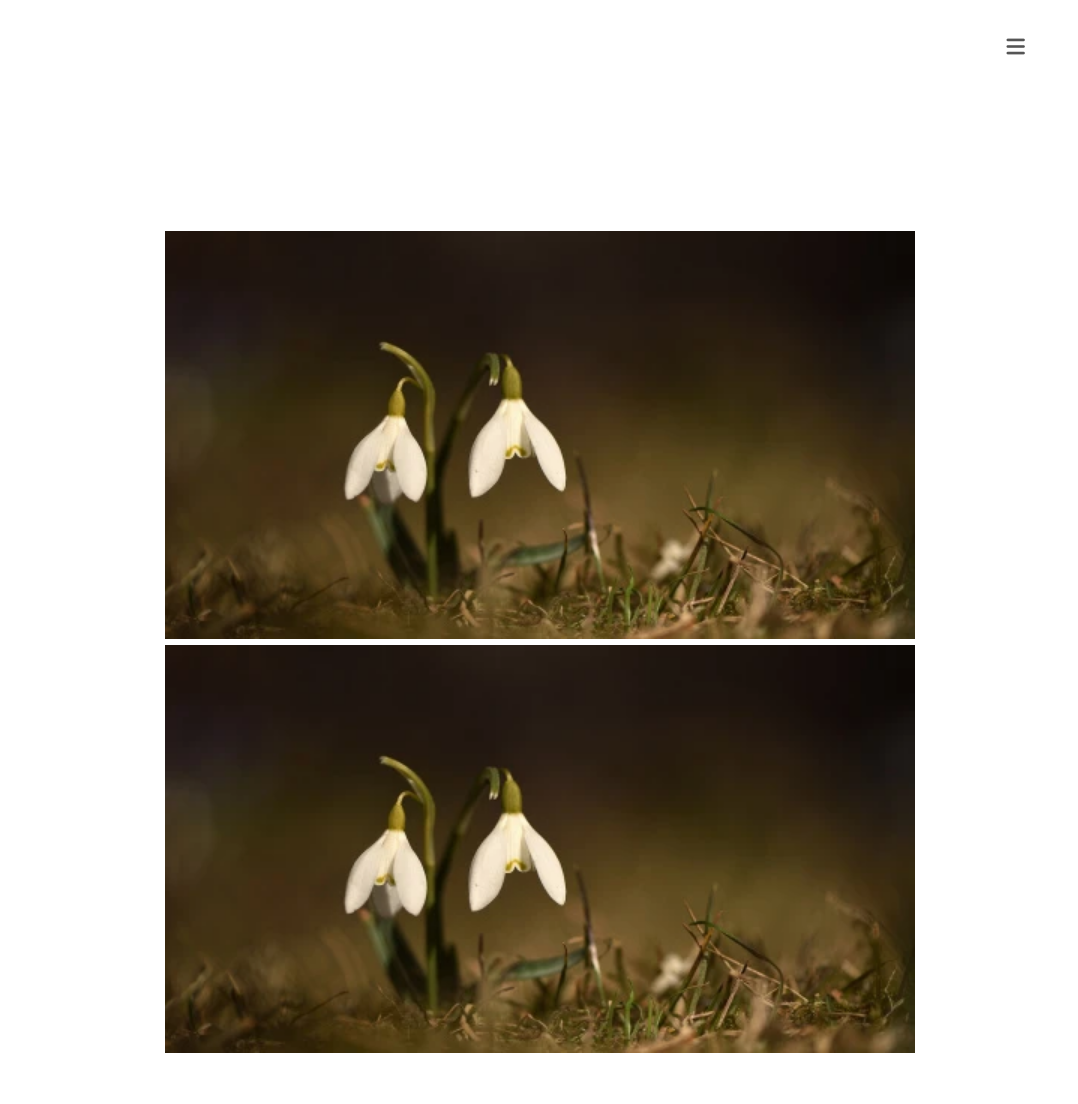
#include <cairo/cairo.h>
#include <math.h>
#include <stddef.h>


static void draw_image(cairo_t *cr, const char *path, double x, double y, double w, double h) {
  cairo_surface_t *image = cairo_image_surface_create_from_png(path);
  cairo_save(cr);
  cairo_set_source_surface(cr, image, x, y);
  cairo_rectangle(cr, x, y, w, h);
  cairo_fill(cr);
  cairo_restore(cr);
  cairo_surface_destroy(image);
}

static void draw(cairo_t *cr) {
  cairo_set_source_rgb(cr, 1, 1, 1);
  cairo_paint(cr);
  draw_image(cr, "images/1.png", 1006, 38, 19, 17);
  draw_image(cr, "images/2.png", 165, 231, 750, 408);
  draw_image(cr, "images/2.png", 165, 645, 750, 408);
}

int main(void) {
  cairo_surface_t *surface = cairo_image_surface_create(CAIRO_FORMAT_RGB24, 1078, 1104);
  cairo_t *cr = cairo_create(surface);
  cairo_font_options_t *options = cairo_font_options_create();
  cairo_font_options_set_hint_metrics(options, CAIRO_HINT_METRICS_OFF);
  cairo_font_options_set_hint_style(options, CAIRO_HINT_STYLE_NONE);
  cairo_set_font_options(cr, options);
  cairo_set_miter_limit(cr, 4);
  draw(cr);
  cairo_surface_write_to_png(surface, "out.png");
  cairo_font_options_destroy(options);
  cairo_destroy(cr);
  cairo_surface_destroy(surface);
  return 0;
}
